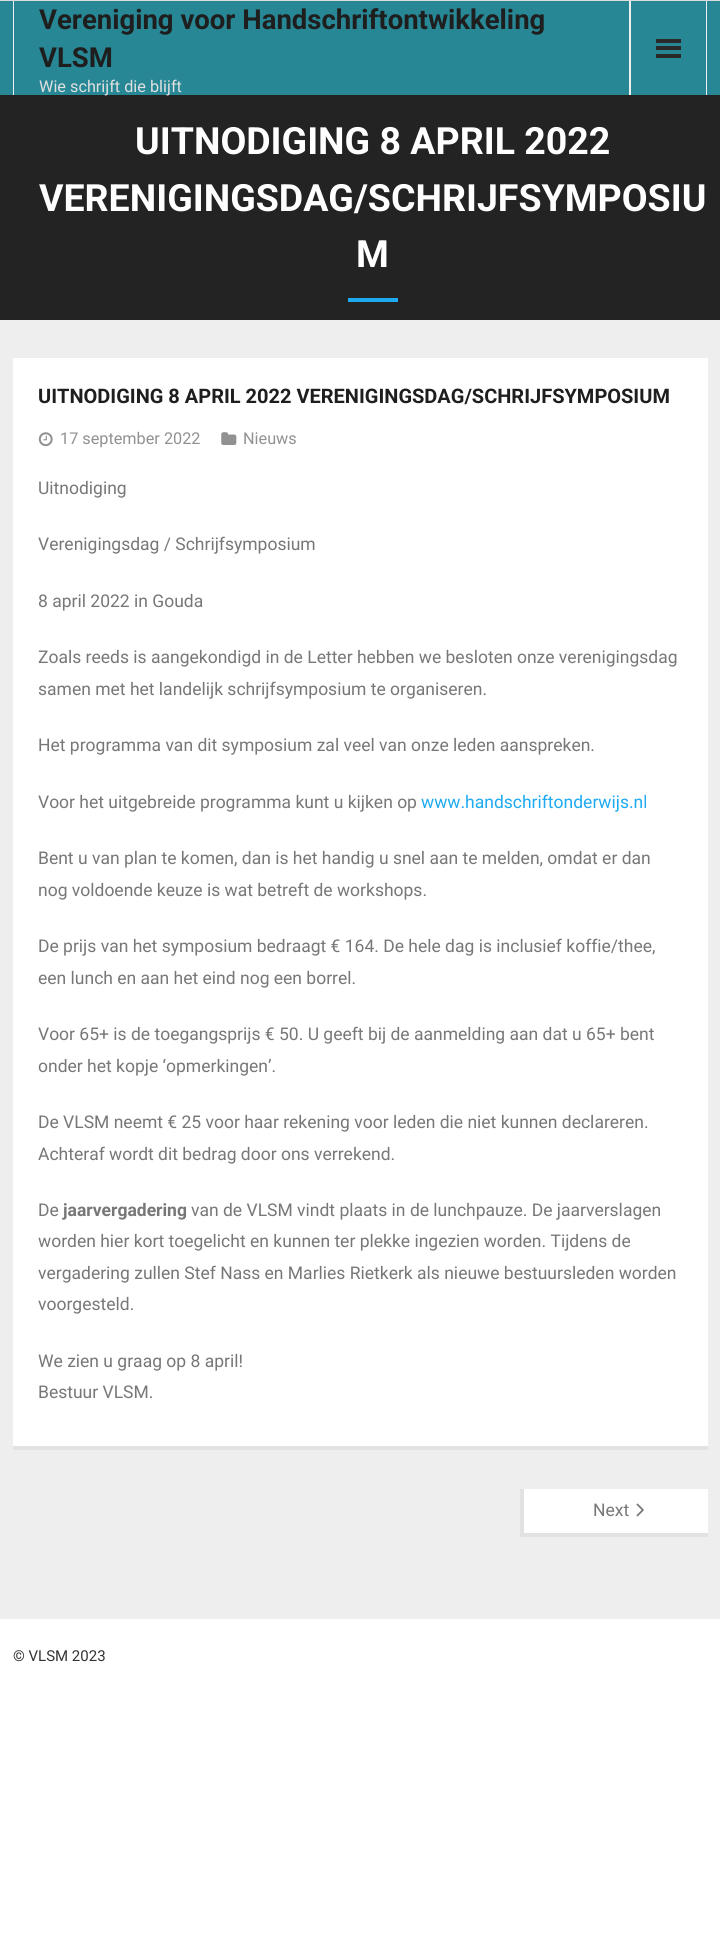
#include <cairo/cairo.h>
#include <math.h>
#include <stddef.h>


static void draw_image(cairo_t *cr, const char *path, double x, double y, double w, double h) {
  cairo_surface_t *image = cairo_image_surface_create_from_png(path);
  cairo_save(cr);
  cairo_set_source_surface(cr, image, x, y);
  cairo_rectangle(cr, x, y, w, h);
  cairo_fill(cr);
  cairo_restore(cr);
  cairo_surface_destroy(image);
}

static void draw(cairo_t *cr) {
  cairo_set_source_rgb(cr, 1, 1, 1);
  cairo_paint(cr);
  cairo_set_source_rgb(cr, 238 / 255.0, 238 / 255.0, 238 / 255.0);
  cairo_rectangle(cr, 0, 320, 720, 1299);
  cairo_fill(cr);
  cairo_set_source_rgb(cr, 221 / 255.0, 221 / 255.0, 221 / 255.0);
  cairo_rectangle(cr, 0, 0, 720, 1);
  cairo_fill(cr);
  cairo_set_source_rgb(cr, 39 / 255.0, 135 / 255.0, 149 / 255.0);
  cairo_rectangle(cr, 0, 1, 720, 94);
  cairo_fill(cr);
  cairo_set_source_rgb(cr, 238 / 255.0, 238 / 255.0, 238 / 255.0);
  cairo_rectangle(cr, 629, 1, 2, 94);
  cairo_fill(cr);
  cairo_rectangle(cr, 13, 1, 1, 94);
  cairo_fill(cr);
  cairo_rectangle(cr, 706, 1, 1, 94);
  cairo_fill(cr);
  cairo_set_source_rgb(cr, 41 / 255.0, 41 / 255.0, 41 / 255.0);
  cairo_rectangle(cr, 656, 39, 25, 4);
  cairo_fill(cr);
  cairo_rectangle(cr, 656, 46, 25, 4);
  cairo_fill(cr);
  cairo_rectangle(cr, 656, 54, 25, 4);
  cairo_fill(cr);
  cairo_set_source_rgb(cr, 35 / 255.0, 35 / 255.0, 35 / 255.0);
  cairo_rectangle(cr, 0, 95, 720, 225);
  cairo_fill(cr);
  cairo_set_source_rgb(cr, 30 / 255.0, 170 / 255.0, 241 / 255.0);
  cairo_rectangle(cr, 348, 298, 50, 4);
  cairo_fill(cr);
  cairo_set_source_rgb(cr, 1, 1, 1);
  cairo_rectangle(cr, 13, 358, 695, 1088);
  cairo_fill(cr);
  cairo_set_source_rgb(cr, 226 / 255.0, 226 / 255.0, 226 / 255.0);
  cairo_rectangle(cr, 13, 1446, 695, 4);
  cairo_fill(cr);
  draw_image(cr, "images/1.png", 38, 432, 15, 15);
  draw_image(cr, "images/2.png", 221, 432, 16, 13);
  cairo_set_source_rgb(cr, 1, 1, 1);
  cairo_rectangle(cr, 524, 1489, 184, 44);
  cairo_fill(cr);
  cairo_set_source_rgb(cr, 226 / 255.0, 226 / 255.0, 226 / 255.0);
  cairo_rectangle(cr, 520, 1533, 188, 4);
  cairo_fill(cr);
  cairo_rectangle(cr, 520, 1489, 4, 47);
  cairo_fill(cr);
  draw_image(cr, "images/3.png", 636, 1503, 8, 14);
  cairo_select_font_face(cr, "Roboto", CAIRO_FONT_SLANT_NORMAL, CAIRO_FONT_WEIGHT_BOLD);
  cairo_set_font_size(cr, 27.5);
  cairo_set_source_rgb(cr, 30 / 255.0, 30 / 255.0, 30 / 255.0);
  cairo_move_to(cr, 39, 29);
  cairo_show_text(cr, "Vereniging voor Handschriftontwikkeling");
  cairo_move_to(cr, 39, 67);
  cairo_show_text(cr, "VLSM");
  cairo_select_font_face(cr, "Roboto", CAIRO_FONT_SLANT_NORMAL, CAIRO_FONT_WEIGHT_NORMAL);
  cairo_set_font_size(cr, 16.25);
  cairo_set_source_rgb(cr, 224 / 255.0, 224 / 255.0, 224 / 255.0);
  cairo_move_to(cr, 39, 92);
  cairo_show_text(cr, "Wie schrijft die blijft");
  cairo_select_font_face(cr, "Roboto", CAIRO_FONT_SLANT_NORMAL, CAIRO_FONT_WEIGHT_BOLD);
  cairo_set_font_size(cr, 37.5);
  cairo_set_source_rgb(cr, 1, 1, 1);
  cairo_move_to(cr, 135, 154);
  cairo_show_text(cr, "UITNODIGING 8 APRIL 2022");
  cairo_move_to(cr, 39, 211);
  cairo_show_text(cr, "VERENIGINGSDAG/SCHRIJFSYMPOSIU");
  cairo_move_to(cr, 356, 267);
  cairo_show_text(cr, "M");
  cairo_set_font_size(cr, 20);
  cairo_set_source_rgb(cr, 30 / 255.0, 30 / 255.0, 30 / 255.0);
  cairo_move_to(cr, 38, 403);
  cairo_show_text(cr, "UITNODIGING 8 APRIL 2022 VERENIGINGSDAG/SCHRIJFSYMPOSIUM");
  cairo_select_font_face(cr, "Roboto", CAIRO_FONT_SLANT_NORMAL, CAIRO_FONT_WEIGHT_NORMAL);
  cairo_set_font_size(cr, 16.25);
  cairo_set_source_rgb(cr, 145 / 255.0, 145 / 255.0, 145 / 255.0);
  cairo_move_to(cr, 60, 444);
  cairo_show_text(cr, "17 september 2022");
  cairo_move_to(cr, 243, 444);
  cairo_show_text(cr, "Nieuws");
  cairo_set_font_size(cr, 17.5);
  cairo_set_source_rgb(cr, 119 / 255.0, 119 / 255.0, 119 / 255.0);
  cairo_move_to(cr, 38, 494);
  cairo_show_text(cr, "Uitnodiging");
  cairo_move_to(cr, 38, 550);
  cairo_show_text(cr, "Verenigingsdag / Schrijfsymposium");
  cairo_move_to(cr, 38, 607);
  cairo_show_text(cr, "8 april 2022 in Gouda");
  cairo_move_to(cr, 38, 663);
  cairo_show_text(cr, "Zoals reeds is aangekondigd in de Letter hebben we besloten onze verenigingsdag");
  cairo_move_to(cr, 38, 695);
  cairo_show_text(cr, "samen met het landelijk schrijfsymposium te organiseren.");
  cairo_move_to(cr, 38, 751);
  cairo_show_text(cr, "Het programma van dit symposium zal veel van onze leden aanspreken.");
  cairo_move_to(cr, 38, 808);
  cairo_show_text(cr, "Voor het uitgebreide programma kunt u kijken op");
  cairo_set_source_rgb(cr, 30 / 255.0, 170 / 255.0, 241 / 255.0);
  cairo_move_to(cr, 421, 808);
  cairo_show_text(cr, "www.handschriftonderwijs.nl");
  cairo_set_source_rgb(cr, 119 / 255.0, 119 / 255.0, 119 / 255.0);
  cairo_move_to(cr, 38, 864);
  cairo_show_text(cr, "Bent u van plan te komen, dan is het handig u snel aan te melden, omdat er dan");
  cairo_move_to(cr, 38, 896);
  cairo_show_text(cr, "nog voldoende keuze is wat betreft de workshops.");
  cairo_move_to(cr, 38, 952);
  cairo_show_text(cr, "De prijs van het symposium bedraagt € 164. De hele dag is inclusief koffie/thee,");
  cairo_move_to(cr, 38, 984);
  cairo_show_text(cr, "een lunch en aan het eind nog een borrel.");
  cairo_move_to(cr, 38, 1040);
  cairo_show_text(cr, "Voor 65+ is de toegangsprijs € 50. U geeft bij de aanmelding aan dat u 65+ bent");
  cairo_move_to(cr, 38, 1072);
  cairo_show_text(cr, "onder het kopje ‘opmerkingen’.");
  cairo_move_to(cr, 38, 1128);
  cairo_show_text(cr, "De VLSM neemt € 25 voor haar rekening voor leden die niet kunnen declareren.");
  cairo_move_to(cr, 38, 1160);
  cairo_show_text(cr, "Achteraf wordt dit bedrag door ons verrekend.");
  cairo_move_to(cr, 38, 1216);
  cairo_show_text(cr, "De");
  cairo_select_font_face(cr, "Roboto", CAIRO_FONT_SLANT_NORMAL, CAIRO_FONT_WEIGHT_BOLD);
  cairo_move_to(cr, 63, 1216);
  cairo_show_text(cr, "jaarvergadering");
  cairo_select_font_face(cr, "Roboto", CAIRO_FONT_SLANT_NORMAL, CAIRO_FONT_WEIGHT_NORMAL);
  cairo_move_to(cr, 191, 1216);
  cairo_show_text(cr, "van de VLSM vindt plaats in de lunchpauze. De jaarverslagen");
  cairo_move_to(cr, 38, 1247);
  cairo_show_text(cr, "worden hier kort toegelicht en kunnen ter plekke ingezien worden. Tijdens de");
  cairo_move_to(cr, 38, 1279);
  cairo_show_text(cr, "vergadering zullen Stef Nass en Marlies Rietkerk als nieuwe bestuursleden worden");
  cairo_move_to(cr, 38, 1310);
  cairo_show_text(cr, "voorgesteld.");
  cairo_move_to(cr, 38, 1367);
  cairo_show_text(cr, "We zien u graag op 8 april!");
  cairo_move_to(cr, 38, 1398);
  cairo_show_text(cr, "Bestuur VLSM.");
  cairo_move_to(cr, 593, 1516);
  cairo_show_text(cr, "Next");
  cairo_set_font_size(cr, 15);
  cairo_set_source_rgb(cr, 51 / 255.0, 51 / 255.0, 51 / 255.0);
  cairo_move_to(cr, 13, 1661);
  cairo_show_text(cr, "© VLSM 2023");
}

int main(void) {
  cairo_surface_t *surface = cairo_image_surface_create(CAIRO_FORMAT_RGB24, 720, 1937);
  cairo_t *cr = cairo_create(surface);
  cairo_font_options_t *options = cairo_font_options_create();
  cairo_font_options_set_hint_metrics(options, CAIRO_HINT_METRICS_OFF);
  cairo_font_options_set_hint_style(options, CAIRO_HINT_STYLE_NONE);
  cairo_set_font_options(cr, options);
  cairo_set_miter_limit(cr, 4);
  draw(cr);
  cairo_surface_write_to_png(surface, "out.png");
  cairo_font_options_destroy(options);
  cairo_destroy(cr);
  cairo_surface_destroy(surface);
  return 0;
}
